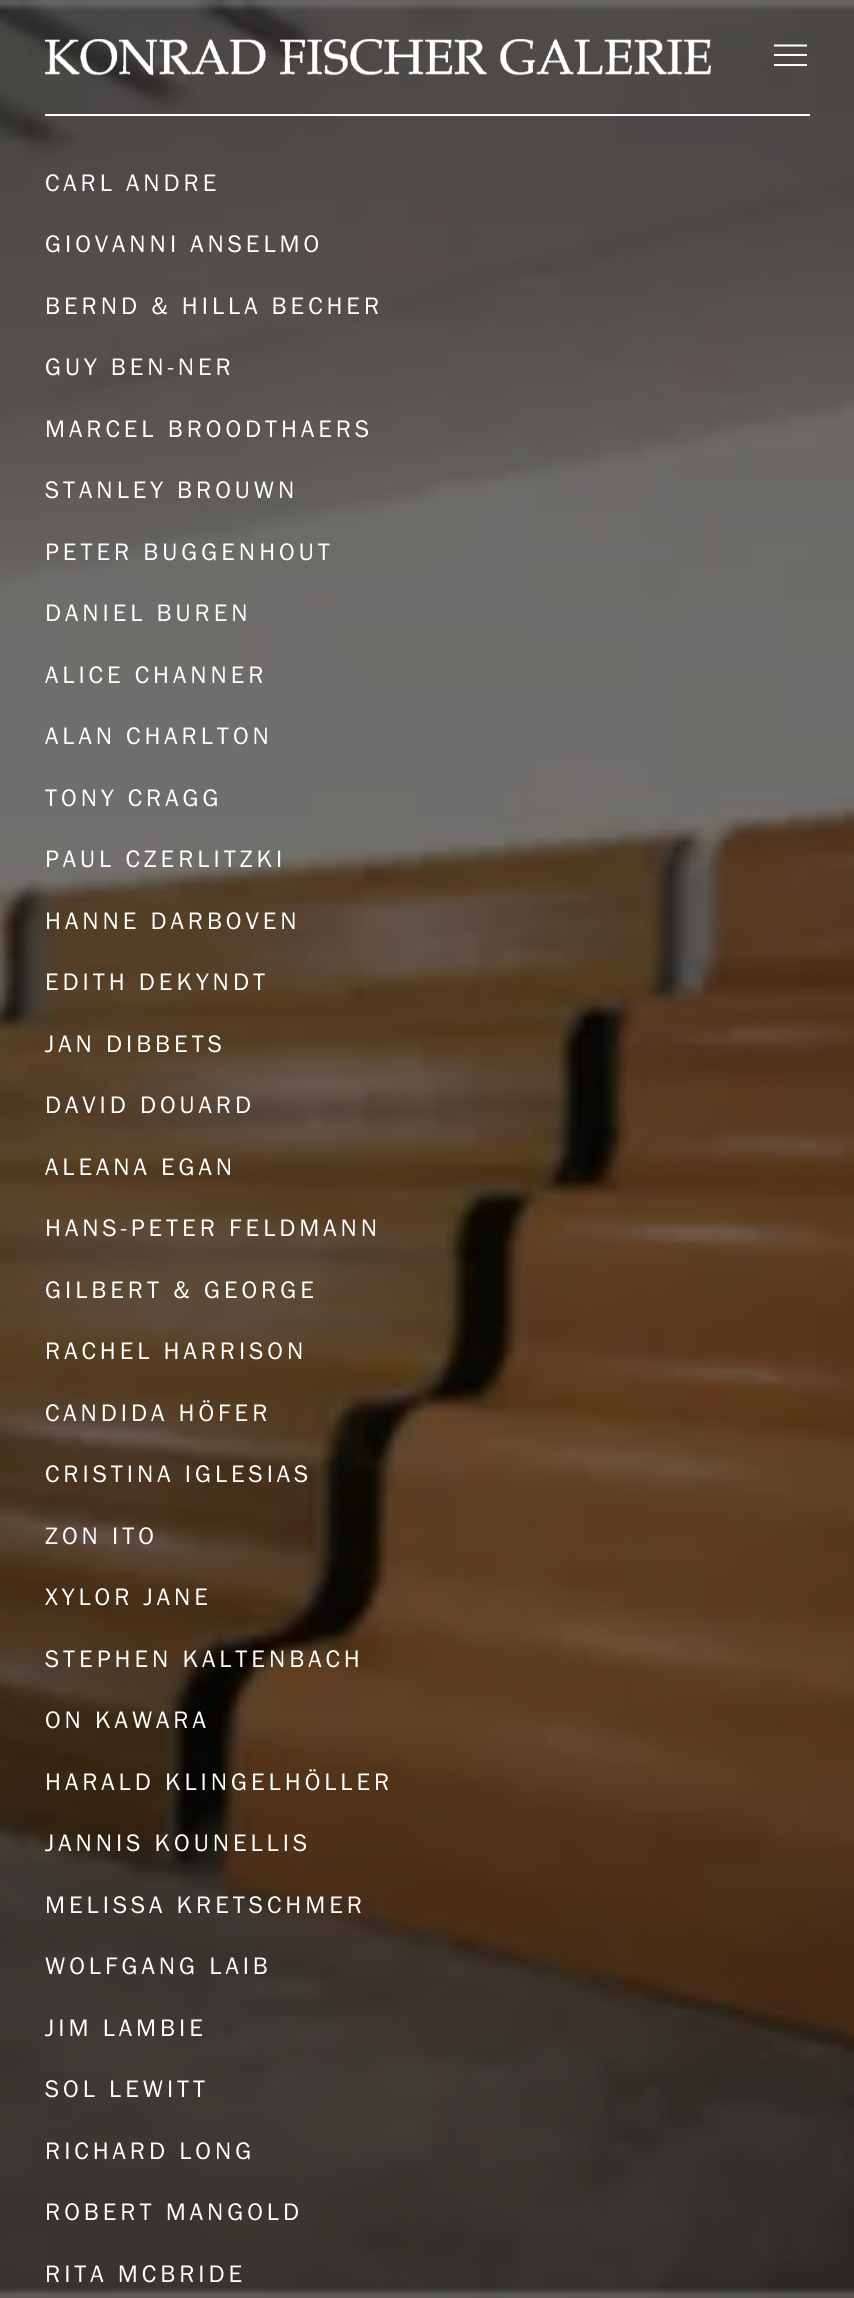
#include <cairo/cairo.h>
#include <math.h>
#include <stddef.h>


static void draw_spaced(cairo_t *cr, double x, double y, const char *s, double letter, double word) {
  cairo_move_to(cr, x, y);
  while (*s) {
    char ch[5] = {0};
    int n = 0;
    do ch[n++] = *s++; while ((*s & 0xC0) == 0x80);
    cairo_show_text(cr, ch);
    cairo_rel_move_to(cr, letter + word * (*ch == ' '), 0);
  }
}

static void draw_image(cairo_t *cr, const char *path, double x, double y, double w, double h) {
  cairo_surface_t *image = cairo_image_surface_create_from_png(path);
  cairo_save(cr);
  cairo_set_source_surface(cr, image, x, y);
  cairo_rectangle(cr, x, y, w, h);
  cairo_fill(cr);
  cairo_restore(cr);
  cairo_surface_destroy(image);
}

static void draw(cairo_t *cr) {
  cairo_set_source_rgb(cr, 128 / 255.0, 128 / 255.0, 128 / 255.0);
  cairo_paint(cr);
  draw_image(cr, "images/2.png", 0, 0, 854, 2298);
  cairo_set_source_rgb(cr, 1, 1, 1);
  cairo_rectangle(cr, 45, 114, 765, 2);
  cairo_fill(cr);
  draw_image(cr, "images/1.png", 45, 39, 666, 37);
  cairo_new_path(cr);
  cairo_move_to(cr, 774, 66);
  cairo_line_to(cr, 774, 64);
  cairo_line_to(cr, 807, 64);
  cairo_line_to(cr, 807, 66);
  cairo_close_path(cr);
  cairo_move_to(cr, 774, 56);
  cairo_line_to(cr, 774, 54);
  cairo_line_to(cr, 807, 54);
  cairo_line_to(cr, 807, 56);
  cairo_close_path(cr);
  cairo_move_to(cr, 774, 46.5);
  cairo_line_to(cr, 774, 44.5);
  cairo_line_to(cr, 807, 44.5);
  cairo_line_to(cr, 807, 46.5);
  cairo_close_path(cr);
  cairo_fill(cr);
  cairo_select_font_face(cr, "Franklin Gothic", CAIRO_FONT_SLANT_NORMAL, CAIRO_FONT_WEIGHT_NORMAL);
  cairo_set_font_size(cr, 24.75);
  draw_spaced(cr, 45, 191, "CARL ANDRE", 4, 0);
  draw_spaced(cr, 45, 252, "GIOVANNI ANSELMO", 4, 0);
  draw_spaced(cr, 45, 314, "BERND & HILLA BECHER", 4, 0);
  draw_spaced(cr, 45, 375, "GUY BEN-NER", 4, 0);
  draw_spaced(cr, 45, 437, "MARCEL BROODTHAERS", 4, 0);
  draw_spaced(cr, 45, 498, "STANLEY BROUWN", 4, 0);
  draw_spaced(cr, 45, 560, "PETER BUGGENHOUT", 4, 0);
  draw_spaced(cr, 45, 621, "DANIEL BUREN", 4, 0);
  draw_spaced(cr, 45, 683, "ALICE CHANNER", 4, 0);
  draw_spaced(cr, 45, 744, "ALAN CHARLTON", 4, 0);
  draw_spaced(cr, 45, 806, "TONY CRAGG", 4, 0);
  draw_spaced(cr, 45, 867, "PAUL CZERLITZKI", 4, 0);
  draw_spaced(cr, 45, 929, "HANNE DARBOVEN", 4, 0);
  draw_spaced(cr, 45, 990, "EDITH DEKYNDT", 4, 0);
  draw_spaced(cr, 45, 1052, "JAN DIBBETS", 4, 0);
  draw_spaced(cr, 45, 1113, "DAVID DOUARD", 4, 0);
  draw_spaced(cr, 45, 1175, "ALEANA EGAN", 4, 0);
  draw_spaced(cr, 45, 1236, "HANS-PETER FELDMANN", 4, 0);
  draw_spaced(cr, 45, 1298, "GILBERT & GEORGE", 4, 0);
  draw_spaced(cr, 45, 1359, "RACHEL HARRISON", 4, 0);
  draw_spaced(cr, 45, 1421, "CANDIDA HÖFER", 4, 0);
  draw_spaced(cr, 45, 1482, "CRISTINA IGLESIAS", 4, 0);
  draw_spaced(cr, 45, 1544, "ZON ITO", 4, 0);
  draw_spaced(cr, 45, 1605, "XYLOR JANE", 4, 0);
  draw_spaced(cr, 45, 1667, "STEPHEN KALTENBACH", 4, 0);
  draw_spaced(cr, 45, 1728, "ON KAWARA", 4, 0);
  draw_spaced(cr, 45, 1790, "HARALD KLINGELHÖLLER", 4, 0);
  draw_spaced(cr, 45, 1851, "JANNIS KOUNELLIS", 4, 0);
  draw_spaced(cr, 45, 1913, "MELISSA KRETSCHMER", 4, 0);
  draw_spaced(cr, 45, 1974, "WOLFGANG LAIB", 4, 0);
  draw_spaced(cr, 45, 2036, "JIM LAMBIE", 4, 0);
  draw_spaced(cr, 45, 2097, "SOL LEWITT", 4, 0);
  draw_spaced(cr, 45, 2159, "RICHARD LONG", 4, 0);
  draw_spaced(cr, 45, 2220, "ROBERT MANGOLD", 4, 0);
  draw_spaced(cr, 45, 2282, "RITA MCBRIDE", 4, 0);
}

int main(void) {
  cairo_surface_t *surface = cairo_image_surface_create(CAIRO_FORMAT_RGB24, 854, 2298);
  cairo_t *cr = cairo_create(surface);
  cairo_font_options_t *options = cairo_font_options_create();
  cairo_font_options_set_hint_metrics(options, CAIRO_HINT_METRICS_OFF);
  cairo_font_options_set_hint_style(options, CAIRO_HINT_STYLE_NONE);
  cairo_set_font_options(cr, options);
  cairo_set_miter_limit(cr, 4);
  draw(cr);
  cairo_surface_write_to_png(surface, "out.png");
  cairo_font_options_destroy(options);
  cairo_destroy(cr);
  cairo_surface_destroy(surface);
  return 0;
}
